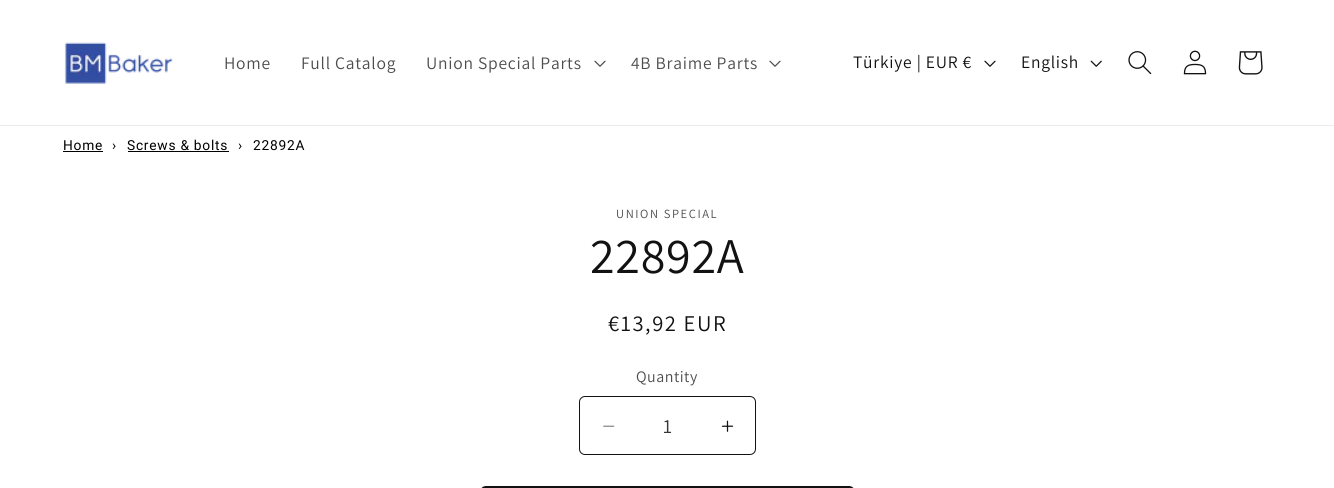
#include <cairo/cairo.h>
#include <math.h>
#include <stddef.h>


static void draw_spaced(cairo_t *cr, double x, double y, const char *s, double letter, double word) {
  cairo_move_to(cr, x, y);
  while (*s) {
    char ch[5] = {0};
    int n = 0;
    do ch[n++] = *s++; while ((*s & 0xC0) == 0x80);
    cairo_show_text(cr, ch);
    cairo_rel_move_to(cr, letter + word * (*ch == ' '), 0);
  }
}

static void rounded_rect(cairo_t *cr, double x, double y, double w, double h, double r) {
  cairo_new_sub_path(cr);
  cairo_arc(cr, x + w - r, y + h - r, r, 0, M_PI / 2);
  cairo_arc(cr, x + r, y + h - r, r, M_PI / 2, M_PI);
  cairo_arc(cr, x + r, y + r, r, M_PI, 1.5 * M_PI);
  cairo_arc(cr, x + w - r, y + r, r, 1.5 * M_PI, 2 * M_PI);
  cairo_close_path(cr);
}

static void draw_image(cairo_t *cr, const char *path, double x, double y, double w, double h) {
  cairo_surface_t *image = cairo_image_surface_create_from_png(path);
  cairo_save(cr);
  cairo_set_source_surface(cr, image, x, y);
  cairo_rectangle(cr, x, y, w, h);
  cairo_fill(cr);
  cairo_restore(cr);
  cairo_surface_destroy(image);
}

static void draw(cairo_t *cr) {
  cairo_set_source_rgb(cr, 1, 1, 1);
  cairo_paint(cr);
  cairo_set_source_rgb(cr, 236 / 255.0, 236 / 255.0, 236 / 255.0);
  cairo_rectangle(cr, 0, 125, 1334, 1);
  cairo_fill(cr);
  draw_image(cr, "images/1.png", 64, 42, 109, 42);
  draw_image(cr, "images/2.png", 594, 60, 12, 7);
  draw_image(cr, "images/2.png", 769, 60, 12, 7);
  draw_image(cr, "images/3.png", 984, 60, 12, 7);
  draw_image(cr, "images/4.png", 1090, 60, 12, 7);
  draw_image(cr, "images/5.png", 1128, 51, 24, 24);
  draw_image(cr, "images/6.png", 1183, 50, 24, 25);
  draw_image(cr, "images/7.png", 1238, 51, 25, 24);
  cairo_set_source_rgb(cr, 0, 0, 0);
  cairo_rectangle(cr, 63, 151, 40, 1);
  cairo_fill(cr);
  cairo_rectangle(cr, 128, 151, 101, 1);
  cairo_fill(cr);
  draw_image(cr, "images/8.png", 603, 425, 12, 2);
  draw_image(cr, "images/9.png", 721, 420, 13, 12);
  rounded_rect(cr, 579.5, 396.5, 176, 58, 5.5);
  cairo_set_source_rgb(cr, 18 / 255.0, 18 / 255.0, 18 / 255.0);
  cairo_set_line_width(cr, 1);
  cairo_stroke(cr);
  rounded_rect(cr, 481, 487, 373, 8, 5);
  cairo_set_line_width(cr, 2);
  cairo_stroke(cr);
  cairo_select_font_face(cr, "Assistant", CAIRO_FONT_SLANT_NORMAL, CAIRO_FONT_WEIGHT_NORMAL);
  cairo_set_font_size(cr, 17.5);
  cairo_set_source_rgb(cr, 77 / 255.0, 77 / 255.0, 77 / 255.0);
  draw_spaced(cr, 224, 69, "Home", 0.75, 0);
  draw_spaced(cr, 301, 69, "Full Catalog", 0.75, 0);
  draw_spaced(cr, 426, 69, "Union Special Parts", 0.75, 0);
  draw_spaced(cr, 631, 69, "4B Braime Parts", 0.75, 0);
  cairo_set_source_rgb(cr, 18 / 255.0, 18 / 255.0, 18 / 255.0);
  draw_spaced(cr, 853, 68, "Türkiye | EUR €", 0.75, 0);
  draw_spaced(cr, 1021, 68, "English", 0.75, 0);
  cairo_select_font_face(cr, "Roboto", CAIRO_FONT_SLANT_NORMAL, CAIRO_FONT_WEIGHT_NORMAL);
  cairo_set_font_size(cr, 13.75);
  cairo_set_source_rgb(cr, 0, 0, 0);
  draw_spaced(cr, 63, 150, "Home", 0.75, 0);
  draw_spaced(cr, 112, 150, "›", 0.75, 0);
  draw_spaced(cr, 127, 150, "Screws & bolts", 0.75, 0);
  draw_spaced(cr, 238, 150, "›", 0.75, 0);
  draw_spaced(cr, 253, 150, "22892A", 0.75, 0);
  cairo_select_font_face(cr, "Assistant", CAIRO_FONT_SLANT_NORMAL, CAIRO_FONT_WEIGHT_NORMAL);
  cairo_set_font_size(cr, 12.5);
  cairo_set_source_rgb(cr, 77 / 255.0, 77 / 255.0, 77 / 255.0);
  draw_spaced(cr, 616, 218, "UNION SPECIAL", 1.6, 0);
  cairo_set_font_size(cr, 50);
  cairo_set_source_rgb(cr, 18 / 255.0, 18 / 255.0, 18 / 255.0);
  draw_spaced(cr, 590, 273, "22892A", 0.75, 0);
  cairo_set_font_size(cr, 22.5);
  draw_spaced(cr, 608, 331, "€13,92 EUR", 1.6, 0);
  cairo_set_font_size(cr, 16);
  cairo_set_source_rgb(cr, 77 / 255.0, 77 / 255.0, 77 / 255.0);
  draw_spaced(cr, 636, 382, "Quantity", 0.5, 0);
  cairo_set_font_size(cr, 20);
  cairo_set_source_rgb(cr, 54 / 255.0, 54 / 255.0, 54 / 255.0);
  cairo_move_to(cr, 663, 433);
  cairo_show_text(cr, "1");
}

int main(void) {
  cairo_surface_t *surface = cairo_image_surface_create(CAIRO_FORMAT_RGB24, 1334, 488);
  cairo_t *cr = cairo_create(surface);
  cairo_font_options_t *options = cairo_font_options_create();
  cairo_font_options_set_hint_metrics(options, CAIRO_HINT_METRICS_OFF);
  cairo_font_options_set_hint_style(options, CAIRO_HINT_STYLE_NONE);
  cairo_set_font_options(cr, options);
  cairo_set_miter_limit(cr, 4);
  draw(cr);
  cairo_surface_write_to_png(surface, "out.png");
  cairo_font_options_destroy(options);
  cairo_destroy(cr);
  cairo_surface_destroy(surface);
  return 0;
}
